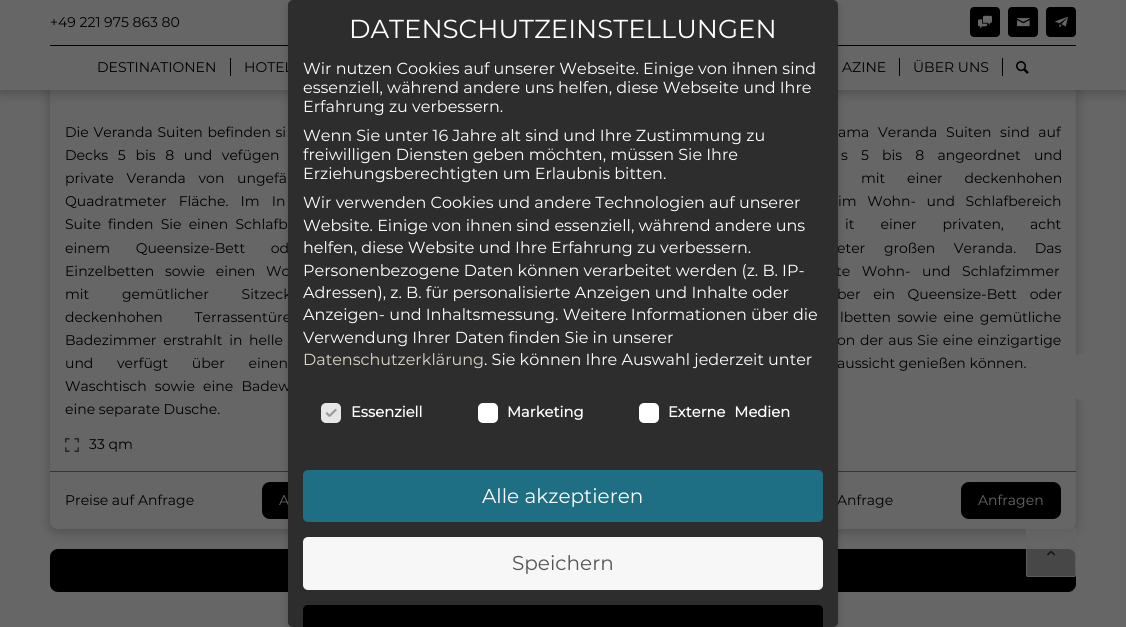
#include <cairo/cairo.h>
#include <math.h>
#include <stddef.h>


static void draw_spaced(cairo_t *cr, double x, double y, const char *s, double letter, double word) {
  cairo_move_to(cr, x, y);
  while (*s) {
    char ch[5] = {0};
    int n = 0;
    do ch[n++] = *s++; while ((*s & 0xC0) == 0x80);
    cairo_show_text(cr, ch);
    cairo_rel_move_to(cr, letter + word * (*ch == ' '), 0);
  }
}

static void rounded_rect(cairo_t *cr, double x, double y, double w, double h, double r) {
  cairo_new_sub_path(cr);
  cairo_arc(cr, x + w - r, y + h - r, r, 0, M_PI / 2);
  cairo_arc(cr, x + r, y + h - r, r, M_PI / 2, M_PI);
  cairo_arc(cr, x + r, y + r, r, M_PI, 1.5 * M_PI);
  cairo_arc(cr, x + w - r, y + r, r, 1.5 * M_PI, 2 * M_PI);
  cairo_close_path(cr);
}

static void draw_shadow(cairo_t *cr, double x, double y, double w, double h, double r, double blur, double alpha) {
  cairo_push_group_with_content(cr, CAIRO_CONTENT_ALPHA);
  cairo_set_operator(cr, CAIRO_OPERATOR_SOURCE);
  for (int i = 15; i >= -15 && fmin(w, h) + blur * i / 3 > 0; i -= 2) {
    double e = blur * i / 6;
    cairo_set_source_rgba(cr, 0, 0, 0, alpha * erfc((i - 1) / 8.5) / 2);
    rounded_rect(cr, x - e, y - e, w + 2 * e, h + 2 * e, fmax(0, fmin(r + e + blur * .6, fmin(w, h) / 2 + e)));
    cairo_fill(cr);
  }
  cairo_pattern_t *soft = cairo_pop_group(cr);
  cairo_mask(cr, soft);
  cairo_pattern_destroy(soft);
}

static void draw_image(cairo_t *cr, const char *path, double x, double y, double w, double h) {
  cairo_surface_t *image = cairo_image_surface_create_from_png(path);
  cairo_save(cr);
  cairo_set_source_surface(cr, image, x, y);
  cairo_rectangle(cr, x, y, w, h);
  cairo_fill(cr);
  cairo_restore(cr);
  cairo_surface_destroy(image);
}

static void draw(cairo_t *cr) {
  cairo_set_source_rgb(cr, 102 / 255.0, 102 / 255.0, 102 / 255.0);
  cairo_paint(cr);
  cairo_set_source_rgb(cr, 0, 0, 0);
  rounded_rect(cr, 50, 549, 1026, 43, 8);
  cairo_fill(cr);
  cairo_set_source_rgb(cr, 0, 0, 0);
  draw_shadow(cr, 50, -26, 327, 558, 8, 6, 0.24);
  cairo_set_source_rgb(cr, 102 / 255.0, 102 / 255.0, 102 / 255.0);
  rounded_rect(cr, 50, -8, 327, 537, 8);
  cairo_fill(cr);
  cairo_set_source_rgb(cr, 0, 0, 0);
  draw_shadow(cr, 749, -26, 327, 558, 8, 6, 0.24);
  cairo_set_source_rgb(cr, 102 / 255.0, 102 / 255.0, 102 / 255.0);
  rounded_rect(cr, 749, -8, 327, 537, 8);
  cairo_fill(cr);
  cairo_set_source_rgb(cr, 0, 0, 0);
  draw_shadow(cr, 0, 3, 1126, 90, 0, 6, 0.24);
  cairo_set_source_rgb(cr, 102 / 255.0, 102 / 255.0, 102 / 255.0);
  cairo_rectangle(cr, 0, 0, 1126, 90);
  cairo_fill(cr);
  cairo_set_source_rgb(cr, 0, 0, 0);
  rounded_rect(cr, 970, 7, 30, 30, 4);
  cairo_fill(cr);
  draw_image(cr, "images/1.png", 978, 15, 14, 14);
  rounded_rect(cr, 1008, 7, 30, 30, 4);
  cairo_fill(cr);
  draw_image(cr, "images/2.png", 1017, 18, 13, 9);
  rounded_rect(cr, 1046, 7, 30, 30, 4);
  cairo_fill(cr);
  draw_image(cr, "images/3.png", 1055, 16, 13, 12);
  cairo_rectangle(cr, 50, 45, 1026, 1);
  cairo_fill(cr);
  cairo_rectangle(cr, 230, 58, 1, 18);
  cairo_fill(cr);
  cairo_rectangle(cr, 899, 58, 1, 18);
  cairo_fill(cr);
  cairo_rectangle(cr, 1002, 58, 1, 18);
  cairo_fill(cr);
  draw_image(cr, "images/4.png", 1016, 61, 13, 13);
  draw_image(cr, "images/5.png", 65, 438, 14, 14);
  cairo_set_source_rgb(cr, 54 / 255.0, 54 / 255.0, 54 / 255.0);
  cairo_rectangle(cr, 50, 471, 238, 1);
  cairo_fill(cr);
  cairo_set_source_rgb(cr, 0, 0, 0);
  rounded_rect(cr, 262, 482, 100, 37, 8);
  cairo_fill(cr);
  cairo_set_source_rgb(cr, 54 / 255.0, 54 / 255.0, 54 / 255.0);
  cairo_rectangle(cr, 838, 471, 238, 1);
  cairo_fill(cr);
  cairo_set_source_rgb(cr, 0, 0, 0);
  rounded_rect(cr, 961, 482, 100, 37, 8);
  cairo_fill(cr);
  cairo_set_source_rgb(cr, 102 / 255.0, 102 / 255.0, 102 / 255.0);
  cairo_arc(cr, 1087, 377, 24, 0, 2 * M_PI);
  cairo_fill(cr);
  cairo_set_source_rgb(cr, 0, 0, 0);
  draw_shadow(cr, 288, 4, 550, 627, 5, 4, 0.2);
  cairo_set_source_rgba(cr, 102 / 255.0, 102 / 255.0, 102 / 255.0, 0.7);
  rounded_rect(cr, 1026, 527, 50, 50, 2);
  cairo_fill(cr);
  rounded_rect(cr, 1026.5, 527.5, 49, 49, 1.5);
  cairo_set_line_width(cr, 1);
  cairo_stroke(cr);
  draw_image(cr, "images/6.png", 1047, 550, 9, 6);
  cairo_select_font_face(cr, "Montserrat", CAIRO_FONT_SLANT_NORMAL, CAIRO_FONT_WEIGHT_NORMAL);
  cairo_set_font_size(cr, 14);
  cairo_set_source_rgb(cr, 0, 0, 0);
  cairo_move_to(cr, 50, 27);
  cairo_show_text(cr, "+49 221 975 863 80");
  cairo_move_to(cr, 97, 72);
  cairo_show_text(cr, "DESTINATIONEN");
  cairo_move_to(cr, 244, 72);
  cairo_show_text(cr, "HOTEL");
  cairo_move_to(cr, 842, 72);
  cairo_show_text(cr, "AZINE");
  cairo_move_to(cr, 913, 72);
  cairo_show_text(cr, "ÜBER UNS");
  draw_spaced(cr, 65, 137, "Die Veranda Suiten befinden si", 0, 1);
  draw_spaced(cr, 65, 160, "Decks 5 bis 8 und vefügen", 0, 6);
  draw_spaced(cr, 65, 183, "private Veranda von ungefä", 0, 9);
  draw_spaced(cr, 65, 206, "Quadratmeter Fläche. Im In", 0, 8.5);
  draw_spaced(cr, 65, 229, "Suite finden Sie einen Schlafb", 0, 3.5);
  draw_spaced(cr, 65, 253, "einem Queensize-Bett od", 0, 22);
  draw_spaced(cr, 65, 276, "Einzelbetten sowie einen Wo", 0, 7);
  draw_spaced(cr, 65, 299, "mit gemütlicher Sitzeck", 0, 29);
  draw_spaced(cr, 65, 322, "deckenhohen Terrassentüre", 0, 28);
  draw_spaced(cr, 65, 345, "Badezimmer erstrahlt in helle", 0, 3);
  draw_spaced(cr, 65, 368, "und verfügt über einen", 0, 20);
  draw_spaced(cr, 65, 391, "Waschtisch sowie eine Badew", 0, 4.5);
  cairo_move_to(cr, 65, 414);
  cairo_show_text(cr, "eine separate Dusche.");
  cairo_move_to(cr, 89, 449);
  cairo_show_text(cr, "33 qm");
  cairo_move_to(cr, 65, 505);
  cairo_show_text(cr, "Preise auf Anfrage");
  cairo_set_source_rgb(cr, 102 / 255.0, 102 / 255.0, 102 / 255.0);
  cairo_move_to(cr, 279, 505);
  cairo_show_text(cr, "A");
  cairo_set_source_rgb(cr, 0, 0, 0);
  draw_spaced(cr, 838, 137, "ama Veranda Suiten sind auf", 0, 5);
  draw_spaced(cr, 841, 160, "s 5 bis 8 angeordnet und", 0, 9.5);
  draw_spaced(cr, 861, 183, "mit einer deckenhohen", 0, 18);
  draw_spaced(cr, 838, 206, "im Wohn- und Schlafbereich", 0, 7);
  draw_spaced(cr, 845, 229, "it einer privaten, acht", 0, 22.5);
  draw_spaced(cr, 837, 253, "eter großen Veranda. Das", 0, 15);
  draw_spaced(cr, 836, 276, "te Wohn- und Schlafzimmer", 0, 8);
  draw_spaced(cr, 837, 299, "ber ein Queensize-Bett oder", 0, 9);
  draw_spaced(cr, 840, 322, "lbetten sowie eine gemütliche", 0, 2.5);
  draw_spaced(cr, 837, 345, "on der aus Sie eine einzigartige", 0, 1);
  cairo_move_to(cr, 837, 368);
  cairo_show_text(cr, "aussicht genießen können.");
  cairo_move_to(cr, 837, 505);
  cairo_show_text(cr, "Anfrage");
  cairo_set_source_rgb(cr, 102 / 255.0, 102 / 255.0, 102 / 255.0);
  cairo_move_to(cr, 978, 505);
  cairo_show_text(cr, "Anfragen");
  cairo_set_source_rgb(cr, 45 / 255.0, 45 / 255.0, 45 / 255.0);
  rounded_rect(cr, 288, 0, 550, 627, 5);
  cairo_fill(cr);
  cairo_set_font_size(cr, 26);
  cairo_set_source_rgb(cr, 1, 1, 1);
  cairo_move_to(cr, 349, 38);
  cairo_show_text(cr, "DATENSCHUTZEINSTELLUNGEN");
  cairo_set_font_size(cr, 16);
  cairo_move_to(cr, 303, 74);
  cairo_show_text(cr, "Wir nutzen Cookies auf unserer Webseite. Einige von ihnen sind");
  cairo_move_to(cr, 303, 93);
  cairo_show_text(cr, "essenziell, während andere uns helfen, diese Webseite und Ihre");
  cairo_move_to(cr, 303, 112);
  cairo_show_text(cr, "Erfahrung zu verbessern.");
  cairo_move_to(cr, 303, 141);
  cairo_show_text(cr, "Wenn Sie unter 16 Jahre alt sind und Ihre Zustimmung zu");
  cairo_move_to(cr, 303, 160);
  cairo_show_text(cr, "freiwilligen Diensten geben möchten, müssen Sie Ihre");
  cairo_move_to(cr, 303, 179);
  cairo_show_text(cr, "Erziehungsberechtigten um Erlaubnis bitten.");
  cairo_move_to(cr, 303, 208);
  cairo_show_text(cr, "Wir verwenden Cookies und andere Technologien auf unserer");
  cairo_move_to(cr, 303, 231);
  cairo_show_text(cr, "Website. Einige von ihnen sind essenziell, während andere uns");
  cairo_move_to(cr, 303, 253);
  cairo_show_text(cr, "helfen, diese Website und Ihre Erfahrung zu verbessern.");
  cairo_move_to(cr, 303, 276);
  cairo_show_text(cr, "Personenbezogene Daten können verarbeitet werden (z. B. IP-");
  cairo_move_to(cr, 303, 298);
  cairo_show_text(cr, "Adressen), z. B. für personalisierte Anzeigen und Inhalte oder");
  cairo_move_to(cr, 303, 320);
  cairo_show_text(cr, "Anzeigen- und Inhaltsmessung. Weitere Informationen über die");
  cairo_move_to(cr, 303, 343);
  cairo_show_text(cr, "Verwendung Ihrer Daten finden Sie in unserer");
  cairo_set_source_rgb(cr, 219 / 255.0, 212 / 255.0, 199 / 255.0);
  cairo_move_to(cr, 303, 365);
  cairo_show_text(cr, "Datenschutzerklärung");
  cairo_set_source_rgb(cr, 1, 1, 1);
  cairo_move_to(cr, 484, 365);
  cairo_show_text(cr, ". Sie können Ihre Auswahl jederzeit unter");
  cairo_set_source_rgb(cr, 230 / 255.0, 230 / 255.0, 230 / 255.0);
  rounded_rect(cr, 322, 404, 18, 18, 4);
  cairo_fill_preserve(cr);
  cairo_set_line_width(cr, 2);
  cairo_stroke(cr);
  cairo_set_source_rgb(cr, 153 / 255.0, 153 / 255.0, 153 / 255.0);
  cairo_new_path(cr);
  cairo_move_to(cr, 335.5, 408.5);
  cairo_line_to(cr, 337, 410);
  cairo_line_to(cr, 330, 417);
  cairo_line_to(cr, 328.5, 415.5);
  cairo_close_path(cr);
  cairo_fill(cr);
  cairo_new_path(cr);
  cairo_move_to(cr, 327, 412);
  cairo_line_to(cr, 330.5, 415.5);
  cairo_line_to(cr, 329, 417);
  cairo_line_to(cr, 325.5, 413.5);
  cairo_close_path(cr);
  cairo_fill(cr);
  cairo_select_font_face(cr, "Montserrat", CAIRO_FONT_SLANT_NORMAL, CAIRO_FONT_WEIGHT_BOLD);
  cairo_set_font_size(cr, 14.75);
  cairo_set_source_rgb(cr, 1, 1, 1);
  cairo_move_to(cr, 351, 417);
  cairo_show_text(cr, "Essenziell");
  rounded_rect(cr, 479, 404, 18, 18, 4);
  cairo_fill_preserve(cr);
  cairo_stroke(cr);
  cairo_move_to(cr, 507, 417);
  cairo_show_text(cr, "Marketing");
  rounded_rect(cr, 640, 404, 18, 18, 4);
  cairo_fill_preserve(cr);
  cairo_stroke(cr);
  draw_spaced(cr, 668, 417, "Externe Medien", 0, 5);
  cairo_set_source_rgb(cr, 30 / 255.0, 110 / 255.0, 132 / 255.0);
  rounded_rect(cr, 303, 470, 520, 52, 5);
  cairo_fill(cr);
  cairo_select_font_face(cr, "Montserrat", CAIRO_FONT_SLANT_NORMAL, CAIRO_FONT_WEIGHT_NORMAL);
  cairo_set_font_size(cr, 20);
  cairo_set_source_rgb(cr, 1, 1, 1);
  cairo_move_to(cr, 482, 503);
  cairo_show_text(cr, "Alle akzeptieren");
  cairo_set_source_rgb(cr, 247 / 255.0, 247 / 255.0, 247 / 255.0);
  rounded_rect(cr, 303, 537, 520, 53, 5);
  cairo_fill(cr);
  cairo_set_source_rgb(cr, 85 / 255.0, 85 / 255.0, 85 / 255.0);
  cairo_move_to(cr, 512, 570);
  cairo_show_text(cr, "Speichern");
  cairo_set_source_rgb(cr, 0, 0, 0);
  cairo_new_path(cr);
  cairo_move_to(cr, 308, 605);
  cairo_line_to(cr, 818, 605);
  cairo_curve_to(cr, 821, 605, 823, 607, 823, 610);
  cairo_line_to(cr, 823, 627);
  cairo_line_to(cr, 303, 627);
  cairo_line_to(cr, 303, 610);
  cairo_curve_to(cr, 303, 607, 305, 605, 308, 605);
  cairo_close_path(cr);
  cairo_fill(cr);
}

int main(void) {
  cairo_surface_t *surface = cairo_image_surface_create(CAIRO_FORMAT_RGB24, 1126, 627);
  cairo_t *cr = cairo_create(surface);
  cairo_font_options_t *options = cairo_font_options_create();
  cairo_font_options_set_hint_metrics(options, CAIRO_HINT_METRICS_OFF);
  cairo_font_options_set_hint_style(options, CAIRO_HINT_STYLE_NONE);
  cairo_set_font_options(cr, options);
  cairo_set_miter_limit(cr, 4);
  draw(cr);
  cairo_surface_write_to_png(surface, "out.png");
  cairo_font_options_destroy(options);
  cairo_destroy(cr);
  cairo_surface_destroy(surface);
  return 0;
}
